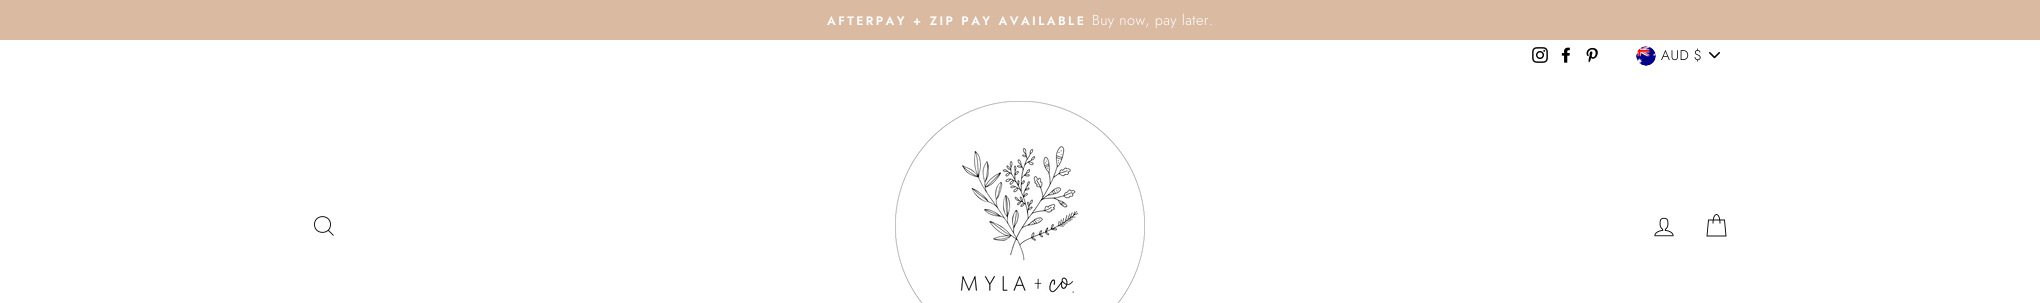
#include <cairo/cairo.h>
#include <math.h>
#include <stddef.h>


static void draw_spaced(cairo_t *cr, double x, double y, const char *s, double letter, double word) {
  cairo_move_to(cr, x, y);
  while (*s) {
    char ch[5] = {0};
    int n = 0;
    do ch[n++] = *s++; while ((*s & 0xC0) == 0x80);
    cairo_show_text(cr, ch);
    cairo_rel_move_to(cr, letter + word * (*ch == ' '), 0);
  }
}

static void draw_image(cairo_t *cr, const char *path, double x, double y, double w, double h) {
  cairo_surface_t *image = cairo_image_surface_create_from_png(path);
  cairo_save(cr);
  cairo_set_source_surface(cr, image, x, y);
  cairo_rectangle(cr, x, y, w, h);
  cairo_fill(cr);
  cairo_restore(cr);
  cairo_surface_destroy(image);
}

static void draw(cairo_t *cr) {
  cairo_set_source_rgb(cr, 1, 1, 1);
  cairo_paint(cr);
  cairo_set_source_rgb(cr, 219 / 255.0, 186 / 255.0, 162 / 255.0);
  cairo_rectangle(cr, 0, 0, 2040, 40);
  cairo_fill(cr);
  draw_image(cr, "images/1.png", 1532, 47, 16, 16);
  draw_image(cr, "images/2.png", 1561, 47, 9, 16);
  draw_image(cr, "images/3.png", 1586, 47, 12, 16);
  draw_image(cr, "images/4.png", 1709, 52, 11, 7);
  draw_image(cr, "images/5.png", 1636, 46, 20, 20);
  cairo_new_path(cr);
  cairo_move_to(cr, 330.5, 224.5);
  cairo_curve_to(cr, 330.5, 235, 314.5, 235, 314.5, 224.5);
  cairo_curve_to(cr, 314.5, 214, 330.5, 214, 330.5, 224.5);
  cairo_close_path(cr);
  cairo_move_to(cr, 333.5, 235.5);
  cairo_line_to(cr, 328.5, 230.5);
  cairo_set_source_rgb(cr, 0, 0, 0);
  cairo_set_line_width(cr, 0.9);
  cairo_stroke(cr);
  draw_image(cr, "images/6.png", 895, 101, 250, 202);
  draw_image(cr, "images/7.png", 1654, 217, 20, 20);
  cairo_new_path(cr);
  cairo_move_to(cr, 1713, 223.5);
  cairo_curve_to(cr, 1713, 211.5, 1720, 211.5, 1720, 223.5);
  cairo_move_to(cr, 1708.5, 220);
  cairo_line_to(cr, 1724.5, 220);
  cairo_line_to(cr, 1726, 236);
  cairo_line_to(cr, 1707, 236);
  cairo_close_path(cr);
  cairo_stroke(cr);
  cairo_select_font_face(cr, "Jost SemiBold", CAIRO_FONT_SLANT_NORMAL, CAIRO_FONT_WEIGHT_NORMAL);
  cairo_set_font_size(cr, 12.25);
  cairo_set_source_rgb(cr, 1, 1, 1);
  draw_spaced(cr, 827, 25, "AFTERPAY + ZIP PAY AVAILABLE", 2.45, 0);
  cairo_select_font_face(cr, "Jost Light", CAIRO_FONT_SLANT_NORMAL, CAIRO_FONT_WEIGHT_NORMAL);
  cairo_set_font_size(cr, 14.5);
  draw_spaced(cr, 1092, 25, "Buy now, pay later.", 0.4, 0);
  cairo_set_font_size(cr, 14);
  cairo_set_source_rgb(cr, 0, 0, 0);
  draw_spaced(cr, 1661, 60, "AUD $", 0.5, 0);
}

int main(void) {
  cairo_surface_t *surface = cairo_image_surface_create(CAIRO_FORMAT_RGB24, 2040, 303);
  cairo_t *cr = cairo_create(surface);
  cairo_font_options_t *options = cairo_font_options_create();
  cairo_font_options_set_hint_metrics(options, CAIRO_HINT_METRICS_OFF);
  cairo_font_options_set_hint_style(options, CAIRO_HINT_STYLE_NONE);
  cairo_set_font_options(cr, options);
  cairo_set_miter_limit(cr, 4);
  draw(cr);
  cairo_surface_write_to_png(surface, "out.png");
  cairo_font_options_destroy(options);
  cairo_destroy(cr);
  cairo_surface_destroy(surface);
  return 0;
}
